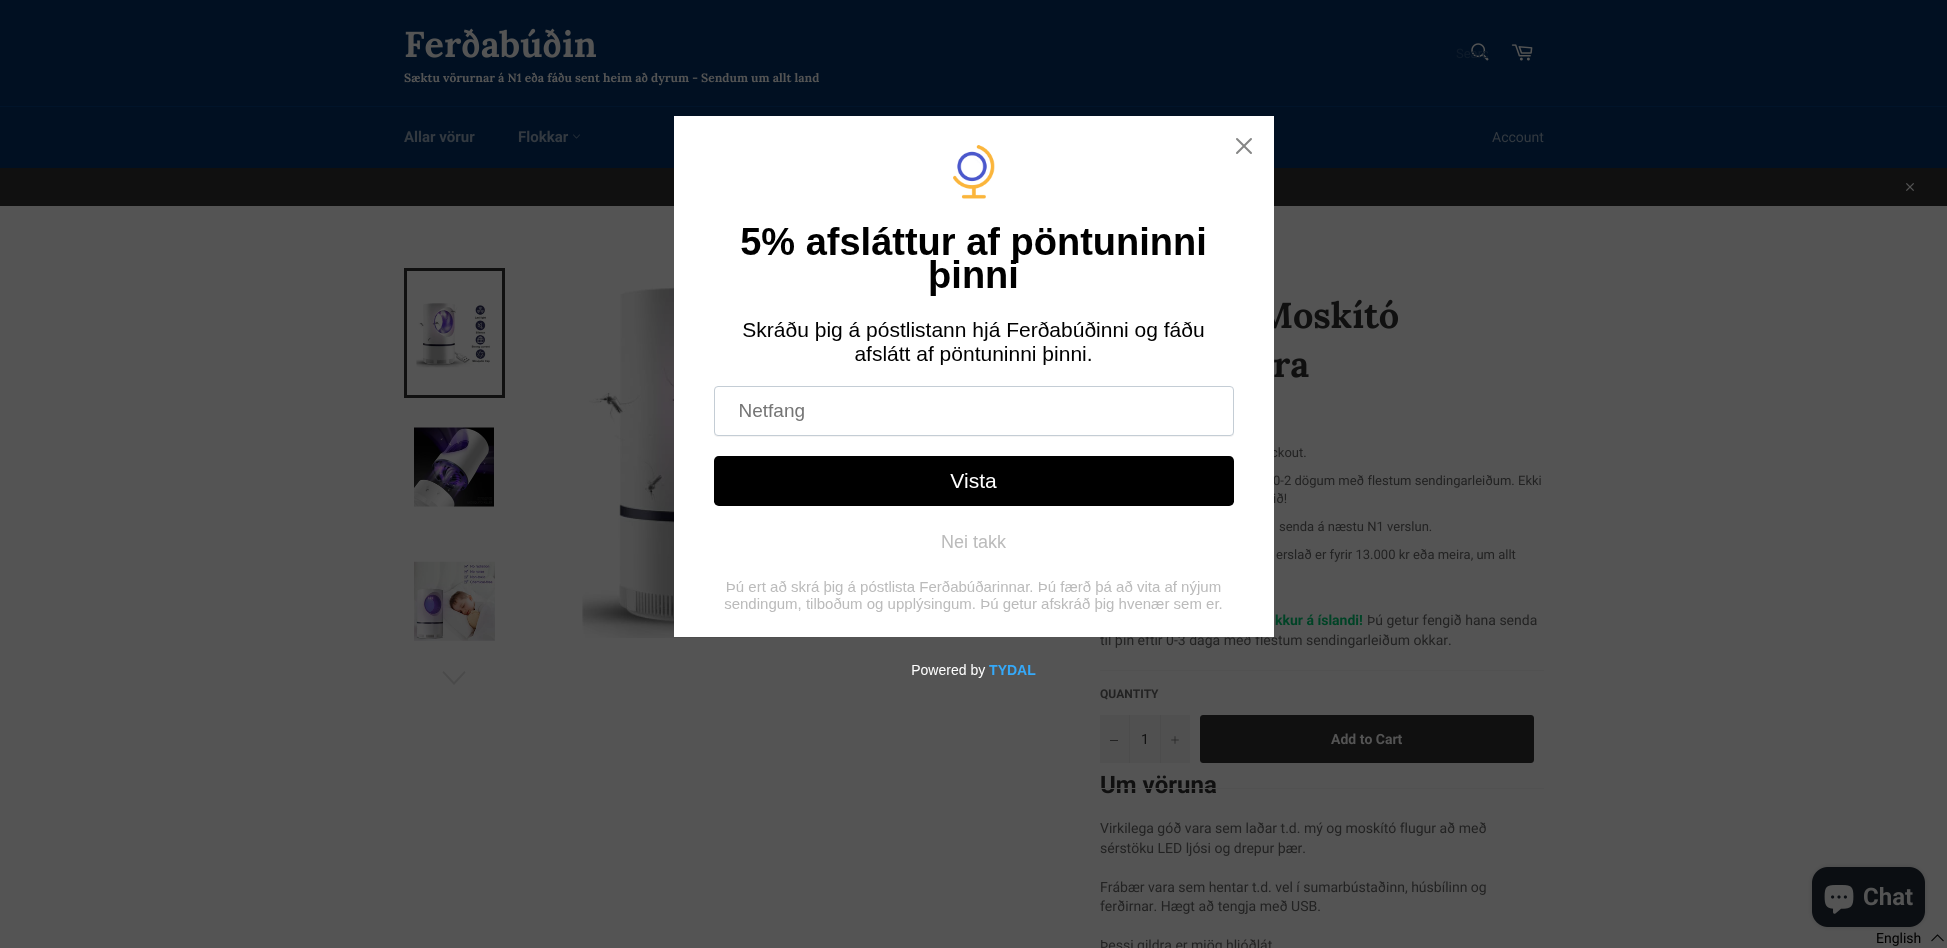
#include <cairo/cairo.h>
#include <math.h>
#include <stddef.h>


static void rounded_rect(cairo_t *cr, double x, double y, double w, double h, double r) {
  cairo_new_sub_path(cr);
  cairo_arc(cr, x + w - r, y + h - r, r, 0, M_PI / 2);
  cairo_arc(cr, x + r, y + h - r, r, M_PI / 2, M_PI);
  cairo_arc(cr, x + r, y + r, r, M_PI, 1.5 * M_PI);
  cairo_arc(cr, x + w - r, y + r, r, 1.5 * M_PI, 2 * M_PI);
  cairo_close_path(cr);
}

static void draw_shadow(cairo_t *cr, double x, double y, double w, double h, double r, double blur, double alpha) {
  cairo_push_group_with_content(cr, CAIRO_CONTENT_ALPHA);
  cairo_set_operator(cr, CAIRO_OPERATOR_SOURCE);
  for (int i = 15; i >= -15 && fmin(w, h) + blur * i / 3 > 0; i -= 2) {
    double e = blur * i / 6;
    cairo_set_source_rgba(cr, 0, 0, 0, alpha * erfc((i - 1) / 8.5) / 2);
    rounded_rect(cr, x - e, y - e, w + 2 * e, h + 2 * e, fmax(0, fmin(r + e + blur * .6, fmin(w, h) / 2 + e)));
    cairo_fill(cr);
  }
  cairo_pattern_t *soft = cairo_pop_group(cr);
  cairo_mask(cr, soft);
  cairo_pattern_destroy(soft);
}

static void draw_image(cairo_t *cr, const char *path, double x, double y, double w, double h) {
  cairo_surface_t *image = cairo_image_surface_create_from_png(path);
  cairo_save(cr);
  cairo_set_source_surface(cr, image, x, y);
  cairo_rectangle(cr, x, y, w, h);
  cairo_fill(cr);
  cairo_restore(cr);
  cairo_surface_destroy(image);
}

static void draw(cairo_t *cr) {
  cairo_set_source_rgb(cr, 2 / 255.0, 49 / 255.0, 103 / 255.0);
  cairo_paint(cr);
  draw_image(cr, "images/2.png", 1471, 43, 18, 18);
  draw_image(cr, "images/3.png", 1511, 44, 22, 17);
  cairo_set_source_rgb(cr, 2 / 255.0, 61 / 255.0, 128 / 255.0);
  cairo_rectangle(cr, 0, 106, 1947, 1);
  cairo_fill(cr);
  draw_image(cr, "images/4.png", 573, 134, 7, 5);
  cairo_set_source_rgb(cr, 50 / 255.0, 50 / 255.0, 50 / 255.0);
  cairo_rectangle(cr, 0, 168, 1947, 38);
  cairo_fill(cr);
  draw_image(cr, "images/5.png", 1906, 183, 8, 8);
  cairo_set_source_rgb(cr, 1, 1, 1);
  cairo_rectangle(cr, 0, 206, 1947, 742);
  cairo_fill(cr);
  draw_image(cr, "images/6.png", 416, 303, 74, 65);
  cairo_rectangle(cr, 405.5, 269.5, 98, 127);
  cairo_set_source_rgb(cr, 50 / 255.0, 50 / 255.0, 50 / 255.0);
  cairo_set_line_width(cr, 3);
  cairo_stroke(cr);
  draw_image(cr, "images/7.png", 414, 427, 80, 80);
  draw_image(cr, "images/8.png", 414, 561, 81, 80);
  cairo_set_source_rgb(cr, 224 / 255.0, 224 / 255.0, 224 / 255.0);
  cairo_new_path(cr);
  cairo_move_to(cr, 464.5, 671);
  cairo_line_to(cr, 465.5, 672.5);
  cairo_line_to(cr, 454, 685);
  cairo_line_to(cr, 442.5, 672.5);
  cairo_line_to(cr, 443.5, 671);
  cairo_line_to(cr, 454, 682);
  cairo_close_path(cr);
  cairo_fill(cr);
  draw_image(cr, "images/9.png", 582, 286, 411, 352);
  cairo_set_source_rgb(cr, 247 / 255.0, 247 / 255.0, 247 / 255.0);
  cairo_rectangle(cr, 1100, 670, 444, 1);
  cairo_fill(cr);
  cairo_set_source_rgb(cr, 244 / 255.0, 244 / 255.0, 244 / 255.0);
  cairo_rectangle(cr, 1100, 715, 90, 48);
  cairo_fill(cr);
  cairo_set_source_rgb(cr, 231 / 255.0, 231 / 255.0, 231 / 255.0);
  cairo_rectangle(cr, 1129, 715, 1, 48);
  cairo_fill(cr);
  cairo_set_source_rgb(cr, 102 / 255.0, 102 / 255.0, 102 / 255.0);
  cairo_rectangle(cr, 1110, 740, 8, 1);
  cairo_fill(cr);
  cairo_set_source_rgb(cr, 231 / 255.0, 231 / 255.0, 231 / 255.0);
  cairo_rectangle(cr, 1160, 715, 1, 48);
  cairo_fill(cr);
  draw_image(cr, "images/10.png", 1171, 736, 8, 8);
  cairo_set_source_rgb(cr, 50 / 255.0, 50 / 255.0, 50 / 255.0);
  rounded_rect(cr, 1200, 715, 334, 48, 3);
  cairo_fill(cr);
  cairo_new_path(cr);
  cairo_move_to(cr, 1943.5, 941);
  cairo_line_to(cr, 1937.5, 935);
  cairo_line_to(cr, 1931.5, 941);
  cairo_set_source_rgb(cr, 0, 0, 0);
  cairo_set_line_width(cr, 1);
  cairo_stroke(cr);
  cairo_set_source_rgb(cr, 0, 0, 0);
  draw_shadow(cr, 1812, 867, 113, 60, 16, 2.5, 0.15);
  cairo_set_source_rgb(cr, 32 / 255.0, 42 / 255.0, 54 / 255.0);
  rounded_rect(cr, 1812, 867, 113, 60, 16);
  cairo_fill(cr);
  draw_image(cr, "images/11.png", 1824, 885, 30, 29);
  cairo_select_font_face(cr, "Lora", CAIRO_FONT_SLANT_NORMAL, CAIRO_FONT_WEIGHT_BOLD);
  cairo_set_font_size(cr, 36);
  cairo_set_source_rgb(cr, 1, 1, 1);
  cairo_move_to(cr, 404, 57);
  cairo_show_text(cr, "Ferðabúðin");
  cairo_set_font_size(cr, 12);
  cairo_move_to(cr, 404, 82);
  cairo_show_text(cr, "Sæktu vörurnar á N1 eða fáðu sent heim að dyrum - Sendum um allt land");
  cairo_save(cr);
  cairo_rectangle(cr, 1456, 46, 32, 15);
  cairo_clip(cr);
  cairo_select_font_face(cr, "Roboto", CAIRO_FONT_SLANT_NORMAL, CAIRO_FONT_WEIGHT_NORMAL);
  cairo_set_font_size(cr, 13);
  cairo_set_source_rgb(cr, 41 / 255.0, 81 / 255.0, 126 / 255.0);
  cairo_move_to(cr, 1456, 58);
  cairo_show_text(cr, "Searc");
  cairo_restore(cr);
  cairo_select_font_face(cr, "Roboto", CAIRO_FONT_SLANT_NORMAL, CAIRO_FONT_WEIGHT_BOLD);
  cairo_set_font_size(cr, 15);
  cairo_set_source_rgb(cr, 154 / 255.0, 173 / 255.0, 194 / 255.0);
  cairo_move_to(cr, 404, 142);
  cairo_show_text(cr, "Allar vörur");
  cairo_move_to(cr, 518, 142);
  cairo_show_text(cr, "Flokkar");
  cairo_select_font_face(cr, "Roboto", CAIRO_FONT_SLANT_NORMAL, CAIRO_FONT_WEIGHT_NORMAL);
  cairo_set_font_size(cr, 14);
  cairo_move_to(cr, 1492, 142);
  cairo_show_text(cr, "Account");
  cairo_select_font_face(cr, "Lora", CAIRO_FONT_SLANT_NORMAL, CAIRO_FONT_WEIGHT_BOLD);
  cairo_set_font_size(cr, 36);
  cairo_set_source_rgb(cr, 50 / 255.0, 50 / 255.0, 50 / 255.0);
  cairo_move_to(cr, 1258, 328);
  cairo_show_text(cr, "Moskító");
  cairo_move_to(cr, 1273, 377);
  cairo_show_text(cr, "ra");
  cairo_select_font_face(cr, "Roboto", CAIRO_FONT_SLANT_NORMAL, CAIRO_FONT_WEIGHT_NORMAL);
  cairo_set_font_size(cr, 13);
  cairo_set_source_rgb(cr, 102 / 255.0, 102 / 255.0, 102 / 255.0);
  cairo_move_to(cr, 1271, 457);
  cairo_show_text(cr, "ckout.");
  cairo_move_to(cr, 1273, 485);
  cairo_show_text(cr, "0-2 dögum með flestum sendingarleiðum. Ekki");
  cairo_move_to(cr, 1273, 503);
  cairo_show_text(cr, "ið!");
  cairo_move_to(cr, 1279, 531);
  cairo_show_text(cr, "senda á næstu N1 verslun.");
  cairo_move_to(cr, 1276, 559);
  cairo_show_text(cr, "erslað er fyrir 13.000 kr eða meira, um allt");
  cairo_select_font_face(cr, "Roboto", CAIRO_FONT_SLANT_NORMAL, CAIRO_FONT_WEIGHT_BOLD);
  cairo_set_font_size(cr, 14);
  cairo_set_source_rgb(cr, 0, 202 / 255.0, 114 / 255.0);
  cairo_move_to(cr, 1275, 625);
  cairo_show_text(cr, "kkur á íslandi!");
  cairo_select_font_face(cr, "Roboto", CAIRO_FONT_SLANT_NORMAL, CAIRO_FONT_WEIGHT_NORMAL);
  cairo_set_source_rgb(cr, 102 / 255.0, 102 / 255.0, 102 / 255.0);
  cairo_move_to(cr, 1367, 625);
  cairo_show_text(cr, "Þú getur fengið hana senda");
  cairo_move_to(cr, 1100, 645);
  cairo_show_text(cr, "til þín eftir 0-3 daga með flestum sendingarleiðum okkar.");
  cairo_select_font_face(cr, "Roboto", CAIRO_FONT_SLANT_NORMAL, CAIRO_FONT_WEIGHT_BOLD);
  cairo_set_font_size(cr, 12);
  cairo_move_to(cr, 1100, 698);
  cairo_show_text(cr, "QUANTITY");
  cairo_select_font_face(cr, "Roboto", CAIRO_FONT_SLANT_NORMAL, CAIRO_FONT_WEIGHT_NORMAL);
  cairo_set_font_size(cr, 14);
  cairo_set_source_rgb(cr, 50 / 255.0, 50 / 255.0, 50 / 255.0);
  cairo_move_to(cr, 1141, 744);
  cairo_show_text(cr, "1");
  cairo_select_font_face(cr, "Roboto", CAIRO_FONT_SLANT_NORMAL, CAIRO_FONT_WEIGHT_BOLD);
  cairo_set_source_rgb(cr, 1, 1, 1);
  cairo_move_to(cr, 1331, 744);
  cairo_show_text(cr, "Add to Cart");
  cairo_set_font_size(cr, 24);
  cairo_set_source_rgb(cr, 50 / 255.0, 50 / 255.0, 50 / 255.0);
  cairo_move_to(cr, 1100, 793);
  cairo_show_text(cr, "Um vöruna");
  cairo_set_source_rgb(cr, 247 / 255.0, 247 / 255.0, 247 / 255.0);
  cairo_rectangle(cr, 1100, 788, 444, 1);
  cairo_fill(cr);
  cairo_select_font_face(cr, "Roboto", CAIRO_FONT_SLANT_NORMAL, CAIRO_FONT_WEIGHT_NORMAL);
  cairo_set_font_size(cr, 14);
  cairo_set_source_rgb(cr, 102 / 255.0, 102 / 255.0, 102 / 255.0);
  cairo_move_to(cr, 1100, 833);
  cairo_show_text(cr, "Virkilega góð vara sem laðar t.d. mý og moskító flugur að með");
  cairo_move_to(cr, 1100, 853);
  cairo_show_text(cr, "sérstöku LED ljósi og drepur þær.");
  cairo_move_to(cr, 1100, 892);
  cairo_show_text(cr, "Frábær vara sem hentar t.d. vel í sumarbústaðinn, húsbílinn og");
  cairo_move_to(cr, 1100, 911);
  cairo_show_text(cr, "ferðirnar. Hægt að tengja með USB.");
  cairo_move_to(cr, 1100, 950);
  cairo_show_text(cr, "Þessi gildra er mjög hljóðlát");
  cairo_select_font_face(cr, "Roboto", CAIRO_FONT_SLANT_NORMAL, CAIRO_FONT_WEIGHT_BOLD);
  cairo_set_font_size(cr, 24);
  cairo_set_source_rgb(cr, 1, 1, 1);
  cairo_move_to(cr, 1863, 905);
  cairo_show_text(cr, "Chat");
  cairo_select_font_face(cr, "Roboto", CAIRO_FONT_SLANT_NORMAL, CAIRO_FONT_WEIGHT_NORMAL);
  cairo_set_font_size(cr, 14);
  cairo_set_source_rgb(cr, 0, 0, 0);
  cairo_move_to(cr, 1876, 943);
  cairo_show_text(cr, "English");
  draw_image(cr, "images/1.png", 0, 0, 1947, 948);
}

int main(void) {
  cairo_surface_t *surface = cairo_image_surface_create(CAIRO_FORMAT_RGB24, 1947, 948);
  cairo_t *cr = cairo_create(surface);
  cairo_font_options_t *options = cairo_font_options_create();
  cairo_font_options_set_hint_metrics(options, CAIRO_HINT_METRICS_OFF);
  cairo_font_options_set_hint_style(options, CAIRO_HINT_STYLE_NONE);
  cairo_set_font_options(cr, options);
  cairo_set_miter_limit(cr, 4);
  draw(cr);
  cairo_surface_write_to_png(surface, "out.png");
  cairo_font_options_destroy(options);
  cairo_destroy(cr);
  cairo_surface_destroy(surface);
  return 0;
}
